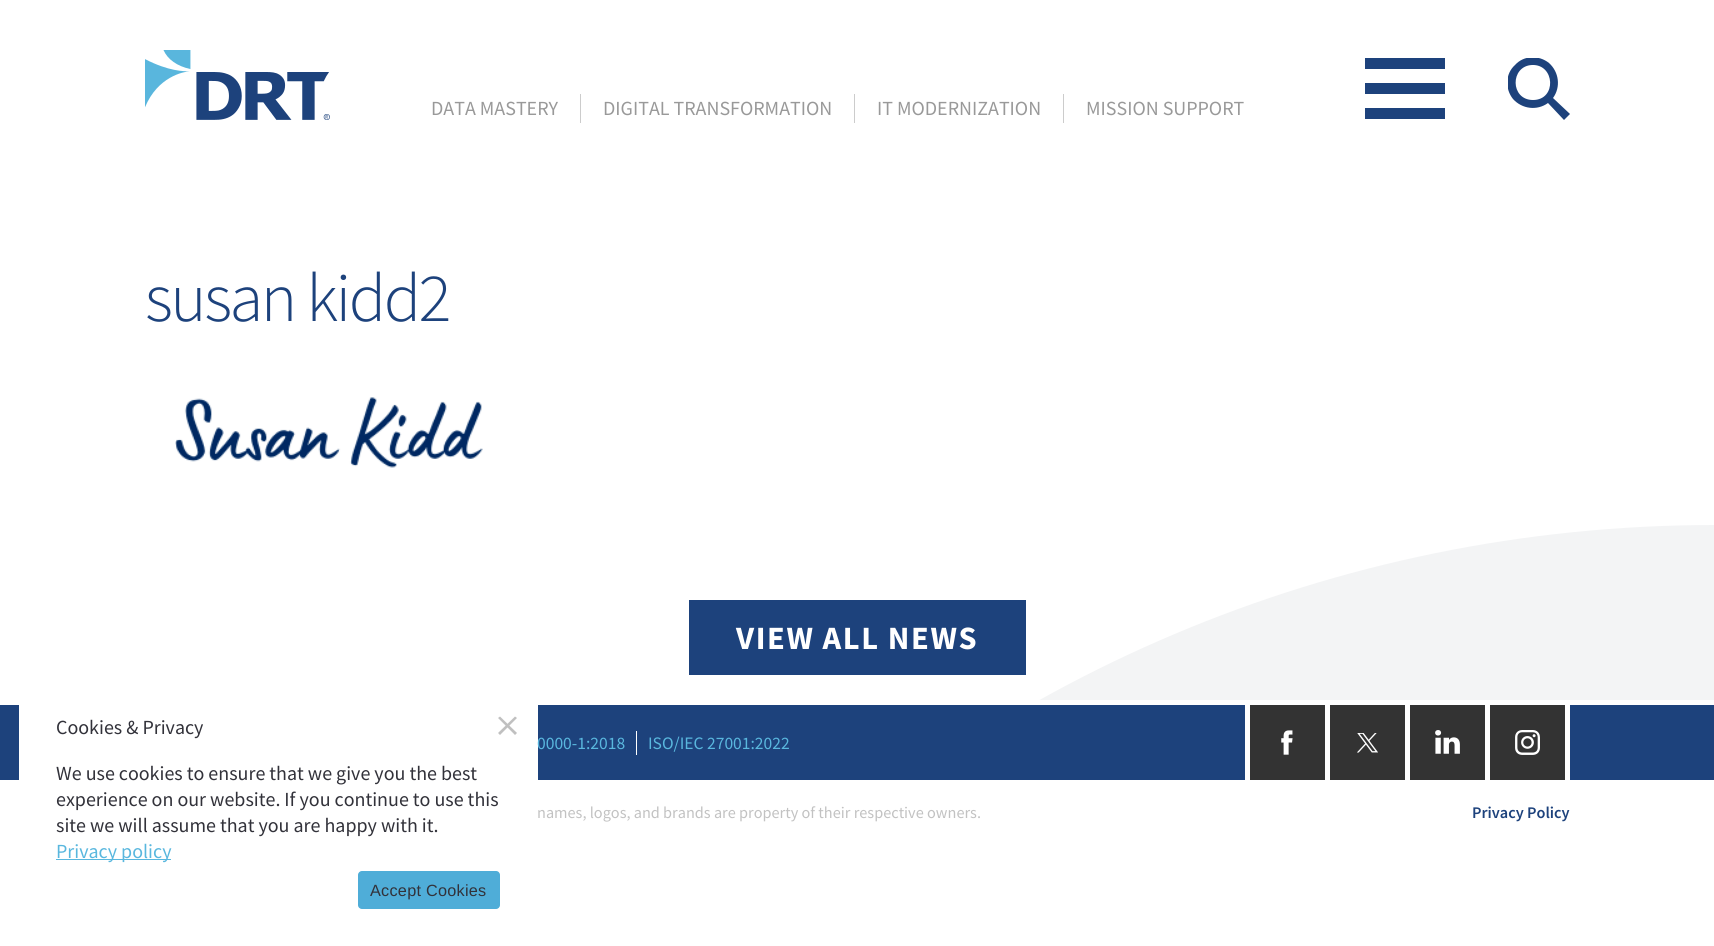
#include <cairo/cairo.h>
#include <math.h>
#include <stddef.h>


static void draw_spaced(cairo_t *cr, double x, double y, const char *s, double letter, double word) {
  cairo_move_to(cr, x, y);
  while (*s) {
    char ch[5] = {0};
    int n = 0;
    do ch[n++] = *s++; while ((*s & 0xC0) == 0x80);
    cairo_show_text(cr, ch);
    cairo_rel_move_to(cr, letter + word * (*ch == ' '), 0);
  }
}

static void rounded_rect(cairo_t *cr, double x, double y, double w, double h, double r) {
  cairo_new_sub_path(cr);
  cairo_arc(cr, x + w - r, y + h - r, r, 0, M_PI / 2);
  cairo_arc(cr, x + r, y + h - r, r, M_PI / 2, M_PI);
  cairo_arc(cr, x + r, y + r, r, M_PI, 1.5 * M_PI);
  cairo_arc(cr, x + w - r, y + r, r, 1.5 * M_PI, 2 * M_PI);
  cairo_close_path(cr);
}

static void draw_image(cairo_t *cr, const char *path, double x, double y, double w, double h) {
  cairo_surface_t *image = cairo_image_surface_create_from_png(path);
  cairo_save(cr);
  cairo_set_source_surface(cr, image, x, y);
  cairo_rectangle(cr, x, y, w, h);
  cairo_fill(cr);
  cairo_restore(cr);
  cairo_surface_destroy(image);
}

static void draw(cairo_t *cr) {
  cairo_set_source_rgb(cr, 1, 1, 1);
  cairo_paint(cr);
  draw_image(cr, "images/1.png", 145, 50, 185, 70);
  cairo_set_source_rgb(cr, 204 / 255.0, 204 / 255.0, 204 / 255.0);
  cairo_rectangle(cr, 580, 94, 1, 29);
  cairo_fill(cr);
  cairo_rectangle(cr, 854, 94, 1, 29);
  cairo_fill(cr);
  cairo_rectangle(cr, 1063, 94, 1, 29);
  cairo_fill(cr);
  cairo_set_source_rgb(cr, 29 / 255.0, 66 / 255.0, 124 / 255.0);
  cairo_rectangle(cr, 1365, 83, 80, 11);
  cairo_fill(cr);
  cairo_rectangle(cr, 1365, 58, 80, 11);
  cairo_fill(cr);
  cairo_rectangle(cr, 1365, 108, 80, 11);
  cairo_fill(cr);
  cairo_save(cr);
  cairo_rectangle(cr, 1508, 58, 62, 62);
  cairo_clip(cr);
  cairo_new_path(cr);
  cairo_move_to(cr, 1553, 98);
  cairo_curve_to(cr, 1561, 87, 1559, 72, 1549, 63);
  cairo_curve_to(cr, 1539, 55, 1524, 55, 1515, 65);
  cairo_curve_to(cr, 1505, 74, 1505, 89, 1513, 99);
  cairo_curve_to(cr, 1522, 109, 1537, 111, 1548, 103);
  cairo_line_to(cr, 1564, 120);
  cairo_line_to(cr, 1570, 114);
  cairo_close_path(cr);
  cairo_move_to(cr, 1533, 100);
  cairo_curve_to(cr, 1510, 100, 1510, 66, 1532, 65);
  cairo_curve_to(cr, 1555, 64, 1557, 100, 1533, 100);
  cairo_close_path(cr);
  cairo_fill(cr);
  cairo_restore(cr);
  draw_image(cr, "images/2.png", 175, 397, 308, 71);
  cairo_rectangle(cr, 689, 600, 337, 75);
  cairo_fill(cr);
  cairo_save(cr);
  cairo_rectangle(cr, 326, 525, 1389, 175);
  cairo_clip(cr);
  cairo_set_source_rgb(cr, 243 / 255.0, 244 / 255.0, 245 / 255.0);
  cairo_new_path(cr);
  cairo_move_to(cr, 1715, 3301);
  cairo_curve_to(cr, 948, 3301, 327, 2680, 327, 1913);
  cairo_curve_to(cr, 327, 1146, 948, 525, 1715, 525);
  cairo_fill(cr);
  cairo_restore(cr);
  cairo_rectangle(cr, 0, 705, 1714, 75);
  cairo_fill(cr);
  cairo_set_source_rgb(cr, 1, 1, 1);
  cairo_rectangle(cr, 636, 731, 1, 24);
  cairo_fill(cr);
  cairo_rectangle(cr, 1245, 705, 5, 75);
  cairo_fill(cr);
  cairo_set_source_rgb(cr, 51 / 255.0, 51 / 255.0, 51 / 255.0);
  cairo_rectangle(cr, 1250, 705, 75, 75);
  cairo_fill(cr);
  draw_image(cr, "images/3.png", 1281, 730, 12, 25);
  cairo_set_source_rgb(cr, 1, 1, 1);
  cairo_rectangle(cr, 1325, 705, 5, 75);
  cairo_fill(cr);
  cairo_set_source_rgb(cr, 51 / 255.0, 51 / 255.0, 51 / 255.0);
  cairo_rectangle(cr, 1330, 705, 75, 75);
  cairo_fill(cr);
  draw_image(cr, "images/4.png", 1357, 733, 21, 20);
  cairo_set_source_rgb(cr, 1, 1, 1);
  cairo_rectangle(cr, 1405, 705, 5, 75);
  cairo_fill(cr);
  cairo_set_source_rgb(cr, 51 / 255.0, 51 / 255.0, 51 / 255.0);
  cairo_rectangle(cr, 1410, 705, 75, 75);
  cairo_fill(cr);
  draw_image(cr, "images/5.png", 1435, 730, 25, 24);
  cairo_set_source_rgb(cr, 1, 1, 1);
  cairo_rectangle(cr, 1565, 705, 5, 75);
  cairo_fill(cr);
  cairo_rectangle(cr, 1485, 705, 5, 75);
  cairo_fill(cr);
  cairo_set_source_rgb(cr, 51 / 255.0, 51 / 255.0, 51 / 255.0);
  cairo_rectangle(cr, 1490, 705, 75, 75);
  cairo_fill(cr);
  draw_image(cr, "images/6.png", 1515, 730, 25, 25);
  cairo_set_source_rgb(cr, 1, 1, 1);
  rounded_rect(cr, 19, 695, 519, 233, 5);
  cairo_fill(cr);
  cairo_set_source_rgb(cr, 89 / 255.0, 183 / 255.0, 222 / 255.0);
  cairo_rectangle(cr, 56, 859, 115, 1);
  cairo_fill(cr);
  cairo_set_source_rgb(cr, 192 / 255.0, 192 / 255.0, 192 / 255.0);
  cairo_new_path(cr);
  cairo_move_to(cr, 515, 716.5);
  cairo_line_to(cr, 517, 718);
  cairo_line_to(cr, 500, 735);
  cairo_line_to(cr, 498, 733);
  cairo_close_path(cr);
  cairo_fill(cr);
  cairo_new_path(cr);
  cairo_move_to(cr, 498, 718);
  cairo_line_to(cr, 500, 716.5);
  cairo_line_to(cr, 517, 733);
  cairo_line_to(cr, 515, 735);
  cairo_close_path(cr);
  cairo_fill(cr);
  cairo_set_source_rgb(cr, 79 / 255.0, 173 / 255.0, 216 / 255.0);
  rounded_rect(cr, 358, 871, 142, 38, 4);
  cairo_fill(cr);
  cairo_select_font_face(cr, "Source Sans Pro", CAIRO_FONT_SLANT_NORMAL, CAIRO_FONT_WEIGHT_NORMAL);
  cairo_set_font_size(cr, 20);
  cairo_set_source_rgb(cr, 153 / 255.0, 153 / 255.0, 153 / 255.0);
  cairo_move_to(cr, 431, 115);
  cairo_show_text(cr, "DATA MASTERY");
  cairo_move_to(cr, 603, 115);
  cairo_show_text(cr, "DIGITAL TRANSFORMATION");
  cairo_move_to(cr, 877, 115);
  cairo_show_text(cr, "IT MODERNIZATION");
  cairo_move_to(cr, 1086, 115);
  cairo_show_text(cr, "MISSION SUPPORT");
  cairo_select_font_face(cr, "Source Sans Pro Light", CAIRO_FONT_SLANT_NORMAL, CAIRO_FONT_WEIGHT_NORMAL);
  cairo_set_font_size(cr, 68.75);
  cairo_set_source_rgb(cr, 29 / 255.0, 66 / 255.0, 124 / 255.0);
  draw_spaced(cr, 145, 321, "susan kidd2", -2.5, 0);
  cairo_select_font_face(cr, "Source Sans Pro", CAIRO_FONT_SLANT_NORMAL, CAIRO_FONT_WEIGHT_BOLD);
  cairo_set_font_size(cr, 32.5);
  cairo_set_source_rgb(cr, 1, 1, 1);
  draw_spaced(cr, 736, 649, "VIEW ALL NEWS", 1.6, 0);
  cairo_select_font_face(cr, "Source Sans Pro", CAIRO_FONT_SLANT_NORMAL, CAIRO_FONT_WEIGHT_NORMAL);
  cairo_set_font_size(cr, 17.5);
  cairo_set_source_rgb(cr, 89 / 255.0, 183 / 255.0, 222 / 255.0);
  cairo_move_to(cr, 537, 749);
  cairo_show_text(cr, "0000-1:2018");
  cairo_move_to(cr, 648, 749);
  cairo_show_text(cr, "ISO/IEC 27001:2022");
  cairo_set_font_size(cr, 16.25);
  cairo_set_source_rgb(cr, 194 / 255.0, 194 / 255.0, 194 / 255.0);
  cairo_move_to(cr, 537, 818);
  cairo_show_text(cr, "names, logos, and brands are property of their respective owners.");
  cairo_select_font_face(cr, "Source Sans Pro SemiBold", CAIRO_FONT_SLANT_NORMAL, CAIRO_FONT_WEIGHT_NORMAL);
  cairo_set_source_rgb(cr, 29 / 255.0, 66 / 255.0, 124 / 255.0);
  cairo_move_to(cr, 1472, 818);
  cairo_show_text(cr, "Privacy Policy");
  cairo_select_font_face(cr, "Source Sans Pro", CAIRO_FONT_SLANT_NORMAL, CAIRO_FONT_WEIGHT_NORMAL);
  cairo_set_font_size(cr, 20);
  cairo_set_source_rgb(cr, 50 / 255.0, 50 / 255.0, 58 / 255.0);
  cairo_move_to(cr, 56, 734);
  cairo_show_text(cr, "Cookies & Privacy");
  cairo_move_to(cr, 56, 780);
  cairo_show_text(cr, "We use cookies to ensure that we give you the best");
  cairo_move_to(cr, 56, 806);
  cairo_show_text(cr, "experience on our website. If you continue to use this");
  cairo_move_to(cr, 56, 832);
  cairo_show_text(cr, "site we will assume that you are happy with it.");
  cairo_set_source_rgb(cr, 89 / 255.0, 183 / 255.0, 222 / 255.0);
  cairo_move_to(cr, 56, 858);
  cairo_show_text(cr, "Privacy policy");
  cairo_select_font_face(cr, "Liberation Sans", CAIRO_FONT_SLANT_NORMAL, CAIRO_FONT_WEIGHT_NORMAL);
  cairo_set_font_size(cr, 16.25);
  cairo_set_source_rgb(cr, 50 / 255.0, 50 / 255.0, 58 / 255.0);
  draw_spaced(cr, 370, 896, "Accept Cookies", 0.25, 0);
}

int main(void) {
  cairo_surface_t *surface = cairo_image_surface_create(CAIRO_FORMAT_RGB24, 1714, 946);
  cairo_t *cr = cairo_create(surface);
  cairo_font_options_t *options = cairo_font_options_create();
  cairo_font_options_set_hint_metrics(options, CAIRO_HINT_METRICS_OFF);
  cairo_font_options_set_hint_style(options, CAIRO_HINT_STYLE_NONE);
  cairo_set_font_options(cr, options);
  cairo_set_miter_limit(cr, 4);
  draw(cr);
  cairo_surface_write_to_png(surface, "out.png");
  cairo_font_options_destroy(options);
  cairo_destroy(cr);
  cairo_surface_destroy(surface);
  return 0;
}
